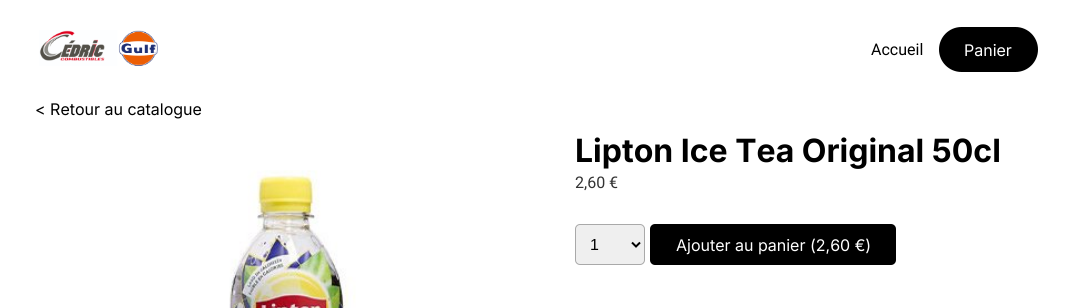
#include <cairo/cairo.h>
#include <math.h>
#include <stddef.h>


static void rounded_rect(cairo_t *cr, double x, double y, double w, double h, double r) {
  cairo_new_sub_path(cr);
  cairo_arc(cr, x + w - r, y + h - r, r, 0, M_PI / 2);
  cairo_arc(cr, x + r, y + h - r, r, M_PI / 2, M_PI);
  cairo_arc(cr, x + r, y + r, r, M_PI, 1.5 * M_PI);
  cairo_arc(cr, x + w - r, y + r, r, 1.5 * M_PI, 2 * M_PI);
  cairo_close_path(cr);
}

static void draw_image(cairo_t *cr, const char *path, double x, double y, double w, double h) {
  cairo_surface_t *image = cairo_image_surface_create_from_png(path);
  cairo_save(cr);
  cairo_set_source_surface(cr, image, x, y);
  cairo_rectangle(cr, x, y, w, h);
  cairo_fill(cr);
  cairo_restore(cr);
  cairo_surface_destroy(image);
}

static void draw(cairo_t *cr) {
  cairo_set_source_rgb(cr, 1, 1, 1);
  cairo_paint(cr);
  draw_image(cr, "images/1.png", 39, 30, 119, 36);
  cairo_set_source_rgb(cr, 0, 0, 0);
  rounded_rect(cr, 939, 27, 99, 45, 22.5);
  cairo_fill(cr);
  draw_image(cr, "images/2.png", 229, 170, 127, 138);
  cairo_set_source_rgb(cr, 239 / 255.0, 239 / 255.0, 239 / 255.0);
  rounded_rect(cr, 575.5, 224.5, 69, 40, 4.5);
  cairo_fill_preserve(cr);
  cairo_set_source_rgb(cr, 169 / 255.0, 169 / 255.0, 169 / 255.0);
  cairo_set_line_width(cr, 1);
  cairo_stroke(cr);
  cairo_new_path(cr);
  cairo_move_to(cr, 632, 242.5);
  cairo_line_to(cr, 636, 246.5);
  cairo_line_to(cr, 640, 242.5);
  cairo_set_source_rgb(cr, 0, 0, 0);
  cairo_set_line_width(cr, 2);
  cairo_stroke(cr);
  rounded_rect(cr, 650, 224, 246, 41, 5);
  cairo_fill(cr);
  cairo_select_font_face(cr, "Roboto", CAIRO_FONT_SLANT_NORMAL, CAIRO_FONT_WEIGHT_NORMAL);
  cairo_set_font_size(cr, 16);
  cairo_move_to(cr, 871, 55);
  cairo_show_text(cr, "Accueil");
  cairo_select_font_face(cr, "Inter", CAIRO_FONT_SLANT_NORMAL, CAIRO_FONT_WEIGHT_NORMAL);
  cairo_set_source_rgb(cr, 1, 1, 1);
  cairo_move_to(cr, 964, 56);
  cairo_show_text(cr, "Panier");
  cairo_set_source_rgb(cr, 0, 0, 0);
  cairo_move_to(cr, 35, 115);
  cairo_show_text(cr, "< Retour au catalogue");
  cairo_select_font_face(cr, "Inter", CAIRO_FONT_SLANT_NORMAL, CAIRO_FONT_WEIGHT_BOLD);
  cairo_set_font_size(cr, 32);
  cairo_move_to(cr, 575, 162);
  cairo_show_text(cr, "Lipton Ice Tea Original 50cl");
  cairo_select_font_face(cr, "Roboto", CAIRO_FONT_SLANT_NORMAL, CAIRO_FONT_WEIGHT_NORMAL);
  cairo_set_font_size(cr, 16);
  cairo_set_source_rgb(cr, 51 / 255.0, 51 / 255.0, 51 / 255.0);
  cairo_move_to(cr, 575, 188);
  cairo_show_text(cr, "2,60 €");
  cairo_select_font_face(cr, "Liberation Sans", CAIRO_FONT_SLANT_NORMAL, CAIRO_FONT_WEIGHT_NORMAL);
  cairo_set_source_rgb(cr, 0, 0, 0);
  cairo_move_to(cr, 590, 250);
  cairo_show_text(cr, "1");
  cairo_select_font_face(cr, "Inter", CAIRO_FONT_SLANT_NORMAL, CAIRO_FONT_WEIGHT_NORMAL);
  cairo_set_source_rgb(cr, 1, 1, 1);
  cairo_move_to(cr, 676, 251);
  cairo_show_text(cr, "Ajouter au panier (2,60 €)");
}

int main(void) {
  cairo_surface_t *surface = cairo_image_surface_create(CAIRO_FORMAT_RGB24, 1070, 308);
  cairo_t *cr = cairo_create(surface);
  cairo_font_options_t *options = cairo_font_options_create();
  cairo_font_options_set_hint_metrics(options, CAIRO_HINT_METRICS_OFF);
  cairo_font_options_set_hint_style(options, CAIRO_HINT_STYLE_NONE);
  cairo_set_font_options(cr, options);
  cairo_set_miter_limit(cr, 4);
  draw(cr);
  cairo_surface_write_to_png(surface, "out.png");
  cairo_font_options_destroy(options);
  cairo_destroy(cr);
  cairo_surface_destroy(surface);
  return 0;
}
